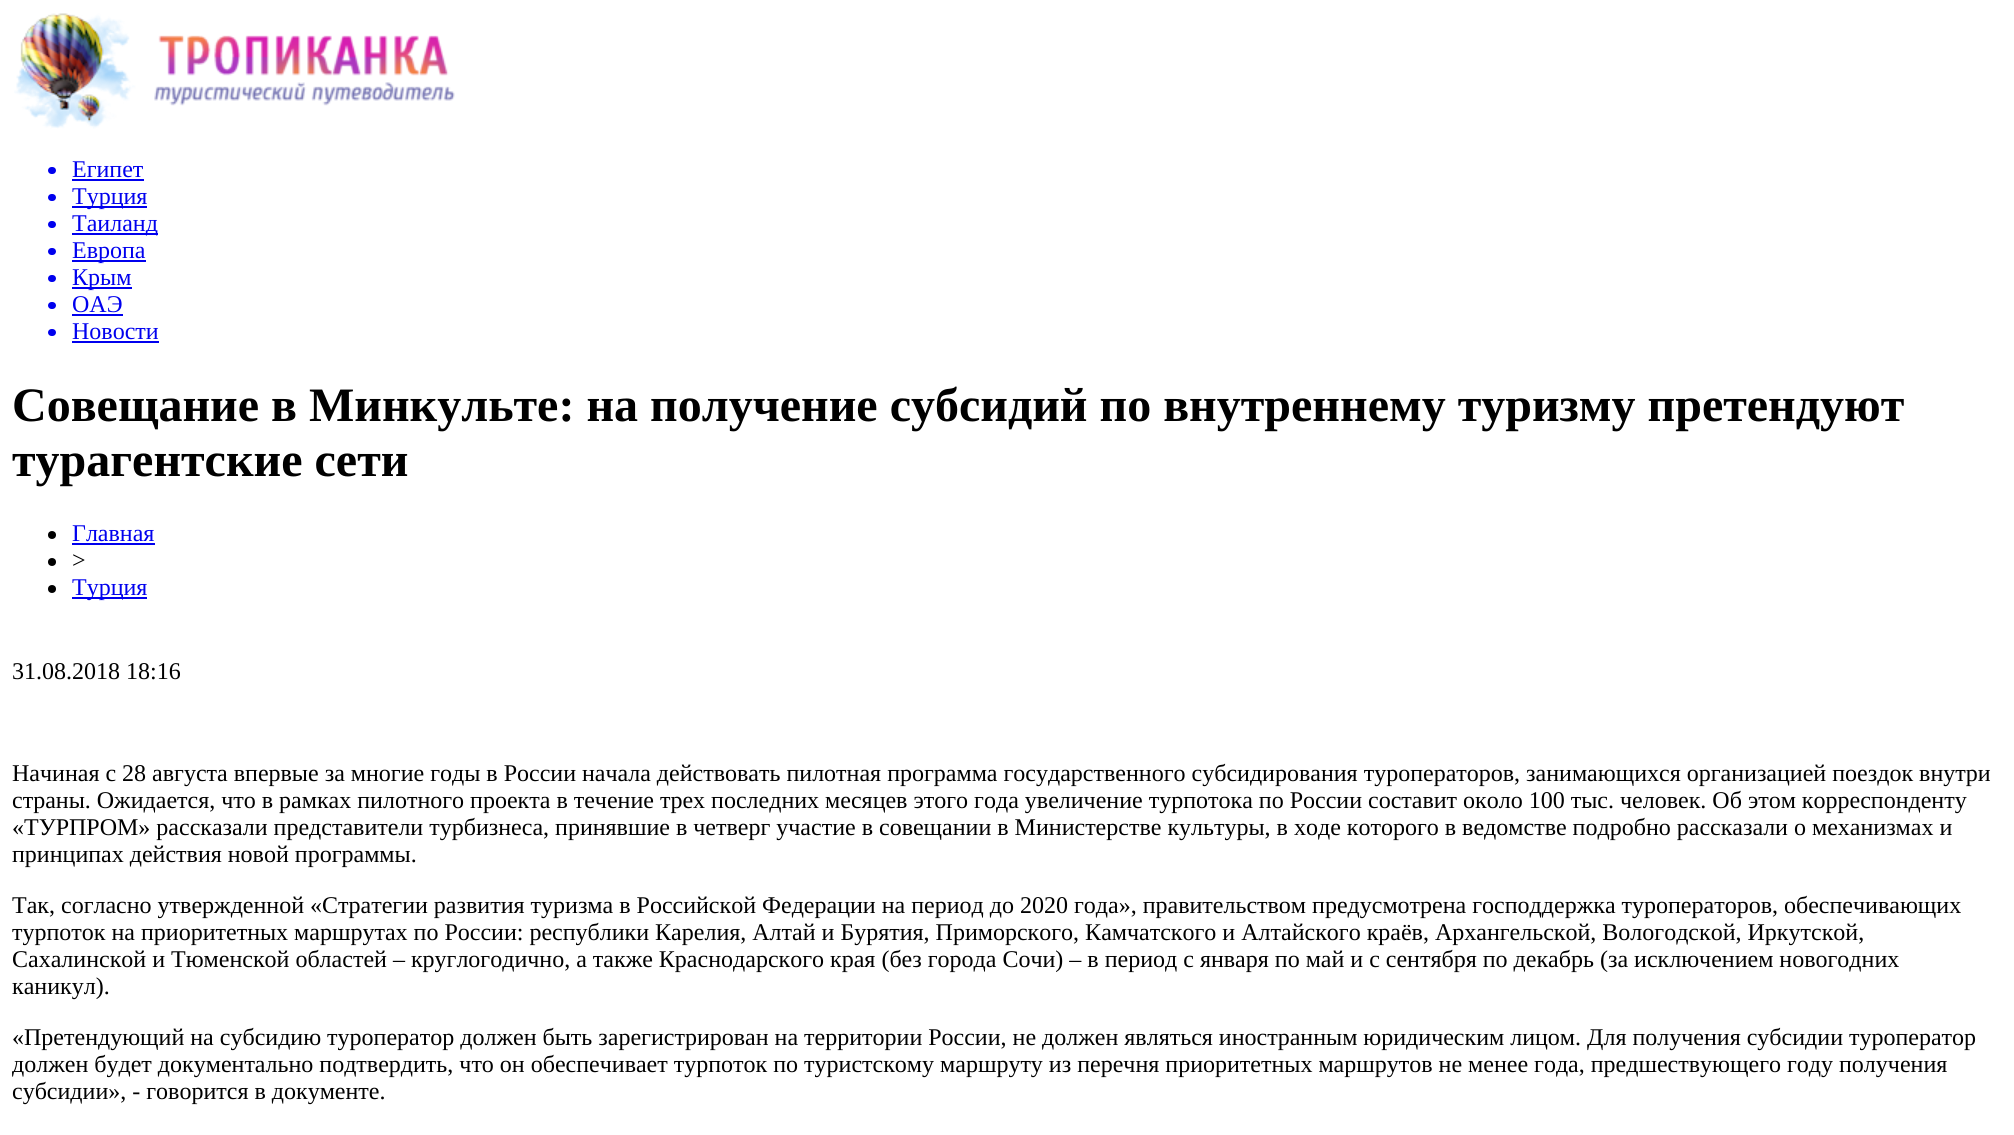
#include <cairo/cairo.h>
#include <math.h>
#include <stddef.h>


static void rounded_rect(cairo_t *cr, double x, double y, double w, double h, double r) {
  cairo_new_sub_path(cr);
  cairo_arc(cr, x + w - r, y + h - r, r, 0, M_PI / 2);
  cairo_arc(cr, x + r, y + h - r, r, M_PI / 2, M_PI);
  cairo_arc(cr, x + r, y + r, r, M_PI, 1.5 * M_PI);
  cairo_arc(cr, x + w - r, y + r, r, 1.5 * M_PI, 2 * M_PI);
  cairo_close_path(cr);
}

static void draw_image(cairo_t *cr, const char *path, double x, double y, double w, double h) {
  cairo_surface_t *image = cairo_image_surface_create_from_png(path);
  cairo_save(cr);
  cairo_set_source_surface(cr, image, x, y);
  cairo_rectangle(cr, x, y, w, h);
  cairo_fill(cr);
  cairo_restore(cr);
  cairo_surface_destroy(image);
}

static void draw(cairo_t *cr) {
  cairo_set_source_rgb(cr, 1, 1, 1);
  cairo_paint(cr);
  draw_image(cr, "images/1.png", 14, 13, 441, 116);
  cairo_set_source_rgb(cr, 0, 0, 238 / 255.0);
  rounded_rect(cr, 48, 167, 8, 7, 3.5);
  cairo_fill(cr);
  cairo_rectangle(cr, 72, 179, 72, 2);
  cairo_fill(cr);
  rounded_rect(cr, 48, 194, 8, 7, 3.5);
  cairo_fill(cr);
  cairo_rectangle(cr, 72, 206, 75, 2);
  cairo_fill(cr);
  rounded_rect(cr, 48, 221, 8, 7, 3.5);
  cairo_fill(cr);
  cairo_rectangle(cr, 72, 233, 86, 2);
  cairo_fill(cr);
  rounded_rect(cr, 48, 248, 8, 7, 3.5);
  cairo_fill(cr);
  cairo_rectangle(cr, 72, 260, 74, 2);
  cairo_fill(cr);
  rounded_rect(cr, 48, 275, 8, 7, 3.5);
  cairo_fill(cr);
  cairo_rectangle(cr, 72, 287, 60, 2);
  cairo_fill(cr);
  rounded_rect(cr, 48, 302, 8, 7, 3.5);
  cairo_fill(cr);
  cairo_rectangle(cr, 72, 314, 51, 2);
  cairo_fill(cr);
  rounded_rect(cr, 48, 329, 8, 7, 3.5);
  cairo_fill(cr);
  cairo_rectangle(cr, 72, 341, 87, 2);
  cairo_fill(cr);
  cairo_set_source_rgb(cr, 0, 0, 0);
  cairo_arc(cr, 52, 535, 4, 0, 2 * M_PI);
  cairo_fill(cr);
  cairo_set_source_rgb(cr, 0, 0, 238 / 255.0);
  cairo_rectangle(cr, 72, 543, 83, 2);
  cairo_fill(cr);
  cairo_set_source_rgb(cr, 0, 0, 0);
  cairo_arc(cr, 52, 562, 4, 0, 2 * M_PI);
  cairo_fill(cr);
  cairo_arc(cr, 52, 589, 4, 0, 2 * M_PI);
  cairo_fill(cr);
  cairo_set_source_rgb(cr, 0, 0, 238 / 255.0);
  cairo_rectangle(cr, 72, 597, 75, 2);
  cairo_fill(cr);
  cairo_select_font_face(cr, "Liberation Serif", CAIRO_FONT_SLANT_NORMAL, CAIRO_FONT_WEIGHT_NORMAL);
  cairo_set_font_size(cr, 24);
  cairo_move_to(cr, 72, 177);
  cairo_show_text(cr, "Египет");
  cairo_move_to(cr, 72, 204);
  cairo_show_text(cr, "Турция");
  cairo_move_to(cr, 72, 231);
  cairo_show_text(cr, "Таиланд");
  cairo_move_to(cr, 72, 258);
  cairo_show_text(cr, "Европа");
  cairo_move_to(cr, 72, 285);
  cairo_show_text(cr, "Крым");
  cairo_move_to(cr, 72, 312);
  cairo_show_text(cr, "ОАЭ");
  cairo_move_to(cr, 72, 339);
  cairo_show_text(cr, "Новости");
  cairo_select_font_face(cr, "Liberation Serif", CAIRO_FONT_SLANT_NORMAL, CAIRO_FONT_WEIGHT_BOLD);
  cairo_set_font_size(cr, 48);
  cairo_set_source_rgb(cr, 0, 0, 0);
  cairo_move_to(cr, 12, 421);
  cairo_show_text(cr, "Совещание в Минкульте: на получение субсидий по внутреннему туризму претендуют");
  cairo_move_to(cr, 12, 476);
  cairo_show_text(cr, "турагентские сети");
  cairo_select_font_face(cr, "Liberation Serif", CAIRO_FONT_SLANT_NORMAL, CAIRO_FONT_WEIGHT_NORMAL);
  cairo_set_font_size(cr, 24);
  cairo_set_source_rgb(cr, 0, 0, 238 / 255.0);
  cairo_move_to(cr, 72, 541);
  cairo_show_text(cr, "Главная");
  cairo_set_source_rgb(cr, 0, 0, 0);
  cairo_move_to(cr, 72, 568);
  cairo_show_text(cr, ">");
  cairo_set_source_rgb(cr, 0, 0, 238 / 255.0);
  cairo_move_to(cr, 72, 595);
  cairo_show_text(cr, "Турция");
  cairo_set_source_rgb(cr, 0, 0, 0);
  cairo_move_to(cr, 12, 679);
  cairo_show_text(cr, "31.08.2018 18:16");
  cairo_move_to(cr, 12, 781);
  cairo_show_text(cr, "Начиная с 28 августа впервые за многие годы в России начала действовать пилотная программа государственного субсидирования туроператоров, занимающихся организацией поездок внутри");
  cairo_move_to(cr, 12, 808);
  cairo_show_text(cr, "страны. Ожидается, что в рамках пилотного проекта в течение трех последних месяцев этого года увеличение турпотока по России составит около 100 тыс. человек. Об этом корреспонденту");
  cairo_move_to(cr, 12, 835);
  cairo_show_text(cr, "«ТУРПРОМ» рассказали представители турбизнеса, принявшие в четверг участие в совещании в Министерстве культуры, в ходе которого в ведомстве подробно рассказали о механизмах и");
  cairo_move_to(cr, 12, 862);
  cairo_show_text(cr, "принципах действия новой программы.");
  cairo_move_to(cr, 12, 913);
  cairo_show_text(cr, "Так, согласно утвержденной «Стратегии развития туризма в Российской Федерации на период до 2020 года», правительством предусмотрена господдержка туроператоров, обеспечивающих");
  cairo_move_to(cr, 12, 940);
  cairo_show_text(cr, "турпоток на приоритетных маршрутах по России: республики Карелия, Алтай и Бурятия, Приморского, Камчатского и Алтайского краёв, Архангельской, Вологодской, Иркутской,");
  cairo_move_to(cr, 12, 967);
  cairo_show_text(cr, "Сахалинской и Тюменской областей – круглогодично, а также Краснодарского края (без города Сочи) – в период с января по май и с сентября по декабрь (за исключением новогодних");
  cairo_move_to(cr, 12, 994);
  cairo_show_text(cr, "каникул).");
  cairo_move_to(cr, 12, 1045);
  cairo_show_text(cr, "«Претендующий на субсидию туроператор должен быть зарегистрирован на территории России, не должен являться иностранным юридическим лицом. Для получения субсидии туроператор");
  cairo_move_to(cr, 12, 1072);
  cairo_show_text(cr, "должен будет документально подтвердить, что он обеспечивает турпоток по туристскому маршруту из перечня приоритетных маршрутов не менее года, предшествующего году получения");
  cairo_move_to(cr, 12, 1099);
  cairo_show_text(cr, "субсидии», - говорится в документе.");
}

int main(void) {
  cairo_surface_t *surface = cairo_image_surface_create(CAIRO_FORMAT_RGB24, 2014, 1135);
  cairo_t *cr = cairo_create(surface);
  cairo_font_options_t *options = cairo_font_options_create();
  cairo_font_options_set_hint_metrics(options, CAIRO_HINT_METRICS_OFF);
  cairo_font_options_set_hint_style(options, CAIRO_HINT_STYLE_NONE);
  cairo_set_font_options(cr, options);
  cairo_set_miter_limit(cr, 4);
  draw(cr);
  cairo_surface_write_to_png(surface, "out.png");
  cairo_font_options_destroy(options);
  cairo_destroy(cr);
  cairo_surface_destroy(surface);
  return 0;
}
